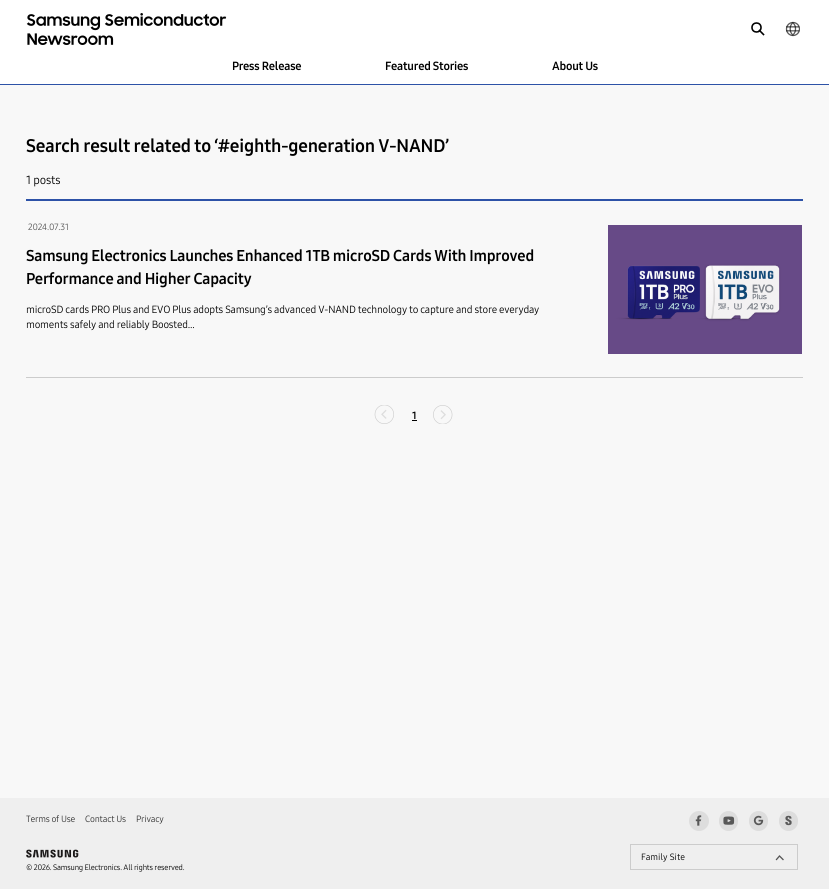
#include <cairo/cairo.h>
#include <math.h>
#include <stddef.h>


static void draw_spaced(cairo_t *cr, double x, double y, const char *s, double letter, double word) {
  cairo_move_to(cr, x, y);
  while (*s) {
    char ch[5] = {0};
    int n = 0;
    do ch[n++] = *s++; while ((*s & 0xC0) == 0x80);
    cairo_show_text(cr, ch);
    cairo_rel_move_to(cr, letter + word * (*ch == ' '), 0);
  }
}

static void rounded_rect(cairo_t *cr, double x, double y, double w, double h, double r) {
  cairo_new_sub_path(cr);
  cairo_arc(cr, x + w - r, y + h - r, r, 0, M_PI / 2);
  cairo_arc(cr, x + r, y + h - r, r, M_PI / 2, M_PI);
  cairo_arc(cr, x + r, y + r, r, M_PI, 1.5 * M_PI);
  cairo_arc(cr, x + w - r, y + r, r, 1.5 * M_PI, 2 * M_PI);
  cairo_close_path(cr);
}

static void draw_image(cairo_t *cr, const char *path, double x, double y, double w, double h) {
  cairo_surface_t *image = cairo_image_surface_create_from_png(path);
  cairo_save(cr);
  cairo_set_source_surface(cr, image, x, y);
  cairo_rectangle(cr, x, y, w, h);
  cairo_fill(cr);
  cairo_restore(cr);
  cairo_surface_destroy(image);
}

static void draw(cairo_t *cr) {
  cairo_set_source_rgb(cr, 248 / 255.0, 248 / 255.0, 248 / 255.0);
  cairo_paint(cr);
  cairo_set_source_rgb(cr, 1, 1, 1);
  cairo_rectangle(cr, 0, 0, 829, 84);
  cairo_fill(cr);
  draw_image(cr, "images/1.png", 26, 13, 201, 32);
  cairo_new_path(cr);
  cairo_move_to(cr, 759.5, 30.5);
  cairo_line_to(cr, 763.5, 34.5);
  cairo_set_source_rgb(cr, 0, 0, 0);
  cairo_set_line_width(cr, 1.6);
  cairo_set_line_cap(cr, CAIRO_LINE_CAP_SQUARE);
  cairo_stroke(cr);
  cairo_arc(cr, 756.5, 27.5, 4.5, 0, 2 * M_PI);
  cairo_set_line_cap(cr, CAIRO_LINE_CAP_BUTT);
  cairo_stroke(cr);
  draw_image(cr, "images/2.png", 785, 21, 15, 16);
  cairo_set_source_rgb(cr, 45 / 255.0, 82 / 255.0, 167 / 255.0);
  cairo_rectangle(cr, 0, 84, 829, 1);
  cairo_fill(cr);
  cairo_rectangle(cr, 26, 199, 777, 2);
  cairo_fill(cr);
  cairo_set_source_rgb(cr, 204 / 255.0, 204 / 255.0, 204 / 255.0);
  cairo_rectangle(cr, 26, 377, 777, 1);
  cairo_fill(cr);
  draw_image(cr, "images/3.png", 608, 225, 194, 129);
  draw_image(cr, "images/4.png", 374, 405, 20, 19);
  cairo_set_source_rgb(cr, 0, 0, 0);
  cairo_rectangle(cr, 412, 420, 5, 1);
  cairo_fill(cr);
  draw_image(cr, "images/5.png", 433, 405, 20, 19);
  cairo_set_source_rgb(cr, 239 / 255.0, 239 / 255.0, 239 / 255.0);
  cairo_rectangle(cr, 0, 798, 829, 91);
  cairo_fill(cr);
  cairo_set_source_rgb(cr, 221 / 255.0, 221 / 255.0, 221 / 255.0);
  cairo_arc(cr, 699, 821, 10, 0, 2 * M_PI);
  cairo_fill(cr);
  draw_image(cr, "images/6.png", 695, 815, 7, 11);
  rounded_rect(cr, 719, 811, 19, 20, 9.5);
  cairo_fill(cr);
  draw_image(cr, "images/7.png", 723, 816, 12, 9);
  rounded_rect(cr, 749, 811, 19, 20, 9.5);
  cairo_fill(cr);
  draw_image(cr, "images/8.png", 753, 815, 11, 11);
  rounded_rect(cr, 779, 811, 19, 20, 9.5);
  cairo_fill(cr);
  draw_image(cr, "images/9.png", 785, 815, 7, 11);
  cairo_rectangle(cr, 630.5, 844.5, 167, 25);
  cairo_set_source_rgb(cr, 204 / 255.0, 204 / 255.0, 204 / 255.0);
  cairo_set_line_width(cr, 1);
  cairo_stroke(cr);
  cairo_new_path(cr);
  cairo_move_to(cr, 776.5, 859.5);
  cairo_line_to(cr, 779.5, 856);
  cairo_line_to(cr, 783, 859.5);
  cairo_set_source_rgb(cr, 85 / 255.0, 85 / 255.0, 85 / 255.0);
  cairo_set_line_width(cr, 1.3);
  cairo_set_line_cap(cr, CAIRO_LINE_CAP_SQUARE);
  cairo_stroke(cr);
  draw_image(cr, "images/10.png", 26, 849, 53, 9);
  cairo_select_font_face(cr, "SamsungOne", CAIRO_FONT_SLANT_NORMAL, CAIRO_FONT_WEIGHT_BOLD);
  cairo_set_font_size(cr, 11.75);
  cairo_set_source_rgb(cr, 0, 0, 0);
  draw_spaced(cr, 232, 70, "Press Release", -0.21, 0);
  draw_spaced(cr, 385, 70, "Featured Stories", -0.21, 0);
  draw_spaced(cr, 552, 70, "About Us", -0.21, 0);
  cairo_set_font_size(cr, 18.1);
  draw_spaced(cr, 26, 152, "Search result related to ‘#eighth-generation V-NAND’", -0.21, 0);
  cairo_select_font_face(cr, "SamsungOne", CAIRO_FONT_SLANT_NORMAL, CAIRO_FONT_WEIGHT_NORMAL);
  cairo_set_font_size(cr, 11.75);
  draw_spaced(cr, 26, 184, "1 posts", -0.21, 0);
  cairo_set_font_size(cr, 9);
  cairo_set_source_rgb(cr, 85 / 255.0, 85 / 255.0, 85 / 255.0);
  draw_spaced(cr, 28, 230, "2024.07.31", -0.21, 0);
  cairo_select_font_face(cr, "SamsungOne", CAIRO_FONT_SLANT_NORMAL, CAIRO_FONT_WEIGHT_BOLD);
  cairo_set_font_size(cr, 15.55);
  cairo_set_source_rgb(cr, 0, 0, 0);
  draw_spaced(cr, 26, 261, "Samsung Electronics Launches Enhanced 1TB microSD Cards With Improved", -0.21, 0);
  draw_spaced(cr, 26, 284, "Performance and Higher Capacity", -0.21, 0);
  cairo_select_font_face(cr, "SamsungOne", CAIRO_FONT_SLANT_NORMAL, CAIRO_FONT_WEIGHT_NORMAL);
  cairo_set_font_size(cr, 10.35);
  draw_spaced(cr, 26, 313, "microSD cards PRO Plus and EVO Plus adopts Samsung’s advanced V-NAND technology to capture and store everyday", -0.21, 0);
  draw_spaced(cr, 26, 328, "moments safely and reliably Boosted...", -0.21, 0);
  cairo_select_font_face(cr, "SamsungOne", CAIRO_FONT_SLANT_NORMAL, CAIRO_FONT_WEIGHT_BOLD);
  draw_spaced(cr, 412, 419, "1", -0.21, 0);
  cairo_select_font_face(cr, "SamsungOne", CAIRO_FONT_SLANT_NORMAL, CAIRO_FONT_WEIGHT_NORMAL);
  cairo_set_font_size(cr, 9);
  cairo_set_source_rgb(cr, 51 / 255.0, 51 / 255.0, 51 / 255.0);
  draw_spaced(cr, 26, 822, "Terms of Use", -0.21, 0);
  draw_spaced(cr, 85, 822, "Contact Us", -0.21, 0);
  draw_spaced(cr, 136, 822, "Privacy", -0.21, 0);
  cairo_set_source_rgb(cr, 0, 0, 0);
  cairo_move_to(cr, 641, 860);
  cairo_show_text(cr, "Family Site");
  cairo_set_font_size(cr, 7.75);
  draw_spaced(cr, 26, 870, "© 2026. Samsung Electronics. All rights reserved.", -0.21, 0);
}

int main(void) {
  cairo_surface_t *surface = cairo_image_surface_create(CAIRO_FORMAT_RGB24, 829, 889);
  cairo_t *cr = cairo_create(surface);
  cairo_font_options_t *options = cairo_font_options_create();
  cairo_font_options_set_hint_metrics(options, CAIRO_HINT_METRICS_OFF);
  cairo_font_options_set_hint_style(options, CAIRO_HINT_STYLE_NONE);
  cairo_set_font_options(cr, options);
  cairo_set_miter_limit(cr, 4);
  draw(cr);
  cairo_surface_write_to_png(surface, "out.png");
  cairo_font_options_destroy(options);
  cairo_destroy(cr);
  cairo_surface_destroy(surface);
  return 0;
}
